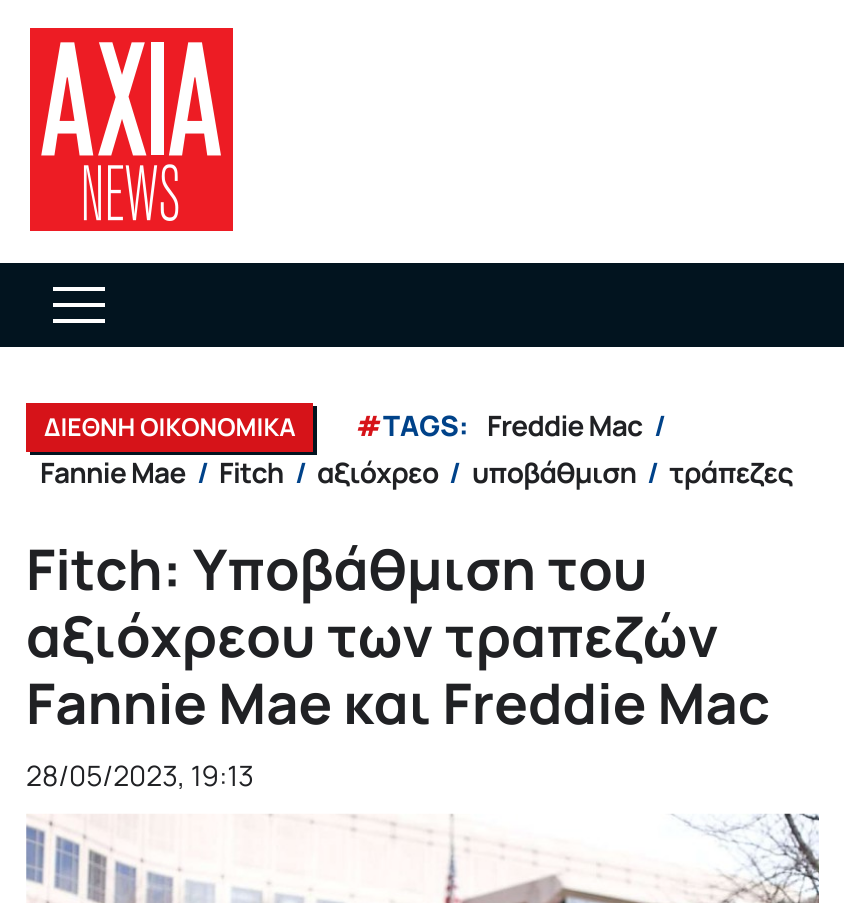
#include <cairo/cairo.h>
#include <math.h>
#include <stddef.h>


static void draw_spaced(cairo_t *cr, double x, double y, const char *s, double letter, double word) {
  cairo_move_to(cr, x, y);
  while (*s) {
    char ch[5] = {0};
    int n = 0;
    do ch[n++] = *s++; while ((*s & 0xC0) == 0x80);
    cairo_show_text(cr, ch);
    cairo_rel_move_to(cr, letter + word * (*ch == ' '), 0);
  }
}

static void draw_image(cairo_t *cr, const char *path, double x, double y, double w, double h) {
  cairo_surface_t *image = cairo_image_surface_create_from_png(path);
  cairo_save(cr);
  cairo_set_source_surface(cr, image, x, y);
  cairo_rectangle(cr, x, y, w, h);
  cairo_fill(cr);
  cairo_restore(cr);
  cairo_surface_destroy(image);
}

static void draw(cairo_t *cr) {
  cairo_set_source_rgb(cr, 1, 1, 1);
  cairo_paint(cr);
  draw_image(cr, "images/1.png", 30, 28, 203, 203);
  cairo_set_source_rgb(cr, 2 / 255.0, 20 / 255.0, 31 / 255.0);
  cairo_rectangle(cr, 0, 263, 844, 84);
  cairo_fill(cr);
  cairo_set_source_rgb(cr, 1, 1, 1);
  cairo_rectangle(cr, 53, 303, 52, 4);
  cairo_fill(cr);
  cairo_rectangle(cr, 53, 287, 52, 4);
  cairo_fill(cr);
  cairo_rectangle(cr, 53, 319, 52, 4);
  cairo_fill(cr);
  cairo_set_source_rgb(cr, 2 / 255.0, 20 / 255.0, 31 / 255.0);
  cairo_new_path(cr);
  cairo_move_to(cr, 30, 452);
  cairo_line_to(cr, 30, 455);
  cairo_line_to(cr, 317, 455);
  cairo_line_to(cr, 317, 406);
  cairo_line_to(cr, 313, 406);
  cairo_line_to(cr, 313, 452);
  cairo_close_path(cr);
  cairo_fill(cr);
  cairo_set_source_rgb(cr, 214 / 255.0, 19 / 255.0, 25 / 255.0);
  cairo_rectangle(cr, 26, 403, 287, 49);
  cairo_fill(cr);
  draw_image(cr, "images/2.png", 26, 813, 793, 90);
  cairo_select_font_face(cr, "Manrope ExtraBold", CAIRO_FONT_SLANT_NORMAL, CAIRO_FONT_WEIGHT_NORMAL);
  cairo_set_font_size(cr, 28);
  cairo_move_to(cr, 356, 436);
  cairo_show_text(cr, "#");
  cairo_set_source_rgb(cr, 0, 66 / 255.0, 137 / 255.0);
  cairo_move_to(cr, 383, 436);
  cairo_show_text(cr, "TAGS:");
  cairo_select_font_face(cr, "Manrope", CAIRO_FONT_SLANT_NORMAL, CAIRO_FONT_WEIGHT_BOLD);
  cairo_set_source_rgb(cr, 32 / 255.0, 33 / 255.0, 36 / 255.0);
  draw_spaced(cr, 487, 436, "Freddie Mac", -0.75, 0);
  cairo_set_source_rgb(cr, 0, 66 / 255.0, 137 / 255.0);
  draw_spaced(cr, 654, 436, "/", -0.75, 0);
  cairo_set_source_rgb(cr, 32 / 255.0, 33 / 255.0, 36 / 255.0);
  draw_spaced(cr, 40, 483, "Fannie Mae", -0.75, 0);
  cairo_set_source_rgb(cr, 0, 66 / 255.0, 137 / 255.0);
  draw_spaced(cr, 197, 483, "/", -0.75, 0);
  cairo_set_source_rgb(cr, 32 / 255.0, 33 / 255.0, 36 / 255.0);
  draw_spaced(cr, 219, 483, "Fitch", -0.75, 0);
  cairo_set_source_rgb(cr, 0, 66 / 255.0, 137 / 255.0);
  draw_spaced(cr, 295, 483, "/", -0.75, 0);
  cairo_set_source_rgb(cr, 32 / 255.0, 33 / 255.0, 36 / 255.0);
  draw_spaced(cr, 317, 483, "αξιόχρεο", -0.75, 0);
  cairo_set_source_rgb(cr, 0, 66 / 255.0, 137 / 255.0);
  draw_spaced(cr, 449, 483, "/", -0.75, 0);
  cairo_set_source_rgb(cr, 32 / 255.0, 33 / 255.0, 36 / 255.0);
  draw_spaced(cr, 472, 483, "υποβάθμιση", -0.75, 0);
  cairo_set_source_rgb(cr, 0, 66 / 255.0, 137 / 255.0);
  draw_spaced(cr, 647, 483, "/", -0.75, 0);
  cairo_set_source_rgb(cr, 32 / 255.0, 33 / 255.0, 36 / 255.0);
  draw_spaced(cr, 669, 483, "τράπεζες", -0.75, 0);
  cairo_set_font_size(cr, 24.5);
  cairo_set_source_rgb(cr, 1, 1, 1);
  cairo_move_to(cr, 44, 436);
  cairo_show_text(cr, "ΔΙΕΘΝΗ ΟΙΚΟΝΟΜΙΚΑ");
  cairo_set_font_size(cr, 56);
  cairo_set_source_rgb(cr, 32 / 255.0, 33 / 255.0, 36 / 255.0);
  cairo_move_to(cr, 26, 590);
  cairo_show_text(cr, "Fitch: Υποβάθμιση του");
  cairo_move_to(cr, 26, 657);
  cairo_show_text(cr, "αξιόχρεου των τραπεζών");
  cairo_move_to(cr, 26, 724);
  cairo_show_text(cr, "Fannie Mae και Freddie Mac");
  cairo_select_font_face(cr, "Manrope", CAIRO_FONT_SLANT_NORMAL, CAIRO_FONT_WEIGHT_NORMAL);
  cairo_set_font_size(cr, 28);
  cairo_move_to(cr, 26, 786);
  cairo_show_text(cr, "28/05/2023, 19:13");
}

int main(void) {
  cairo_surface_t *surface = cairo_image_surface_create(CAIRO_FORMAT_RGB24, 844, 903);
  cairo_t *cr = cairo_create(surface);
  cairo_font_options_t *options = cairo_font_options_create();
  cairo_font_options_set_hint_metrics(options, CAIRO_HINT_METRICS_OFF);
  cairo_font_options_set_hint_style(options, CAIRO_HINT_STYLE_NONE);
  cairo_set_font_options(cr, options);
  cairo_set_miter_limit(cr, 4);
  draw(cr);
  cairo_surface_write_to_png(surface, "out.png");
  cairo_font_options_destroy(options);
  cairo_destroy(cr);
  cairo_surface_destroy(surface);
  return 0;
}
